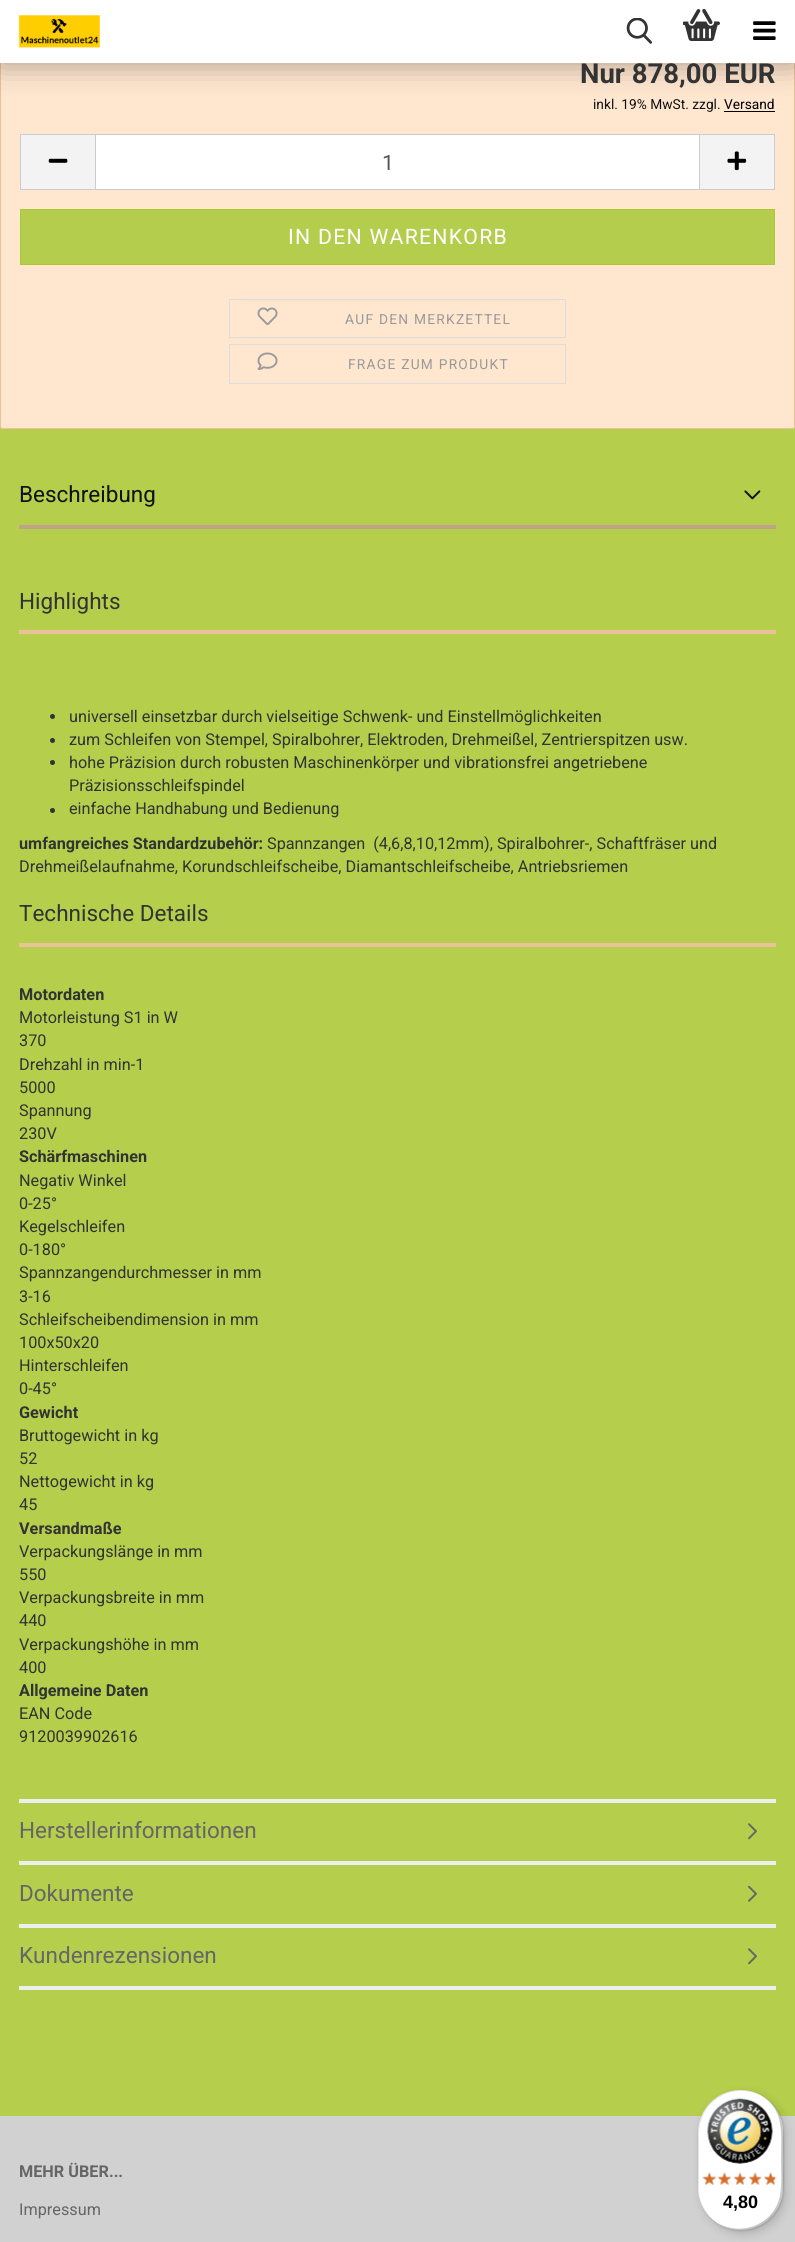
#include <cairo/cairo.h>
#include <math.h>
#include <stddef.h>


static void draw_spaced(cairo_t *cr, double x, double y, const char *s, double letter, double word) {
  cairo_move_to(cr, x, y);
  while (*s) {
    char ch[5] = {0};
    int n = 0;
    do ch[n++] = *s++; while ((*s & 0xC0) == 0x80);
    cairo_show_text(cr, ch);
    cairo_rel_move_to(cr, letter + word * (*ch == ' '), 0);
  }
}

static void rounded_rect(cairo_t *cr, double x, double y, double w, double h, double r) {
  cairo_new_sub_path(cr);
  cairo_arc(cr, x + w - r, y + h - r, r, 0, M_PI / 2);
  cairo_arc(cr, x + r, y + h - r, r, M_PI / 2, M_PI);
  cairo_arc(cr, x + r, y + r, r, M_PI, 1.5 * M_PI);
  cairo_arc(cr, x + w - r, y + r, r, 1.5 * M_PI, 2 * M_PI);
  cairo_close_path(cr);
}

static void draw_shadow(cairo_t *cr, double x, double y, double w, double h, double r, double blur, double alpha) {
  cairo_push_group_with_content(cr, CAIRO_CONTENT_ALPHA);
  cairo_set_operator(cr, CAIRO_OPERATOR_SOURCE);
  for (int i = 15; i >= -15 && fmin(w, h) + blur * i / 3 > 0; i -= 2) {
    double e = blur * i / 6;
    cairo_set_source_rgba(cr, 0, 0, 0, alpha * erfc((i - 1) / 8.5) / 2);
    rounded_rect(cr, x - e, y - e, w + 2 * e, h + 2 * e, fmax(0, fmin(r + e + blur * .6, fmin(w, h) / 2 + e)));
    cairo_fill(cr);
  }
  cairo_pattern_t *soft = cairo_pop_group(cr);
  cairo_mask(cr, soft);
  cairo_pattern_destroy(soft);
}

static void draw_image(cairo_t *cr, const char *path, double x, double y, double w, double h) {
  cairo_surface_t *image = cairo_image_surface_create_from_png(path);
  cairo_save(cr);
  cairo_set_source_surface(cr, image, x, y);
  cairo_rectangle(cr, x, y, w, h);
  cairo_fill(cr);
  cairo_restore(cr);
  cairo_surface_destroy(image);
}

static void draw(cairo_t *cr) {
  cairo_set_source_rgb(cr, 181 / 255.0, 206 / 255.0, 76 / 255.0);
  cairo_paint(cr);
  cairo_set_source_rgb(cr, 1, 230 / 255.0, 207 / 255.0);
  rounded_rect(cr, 0.5, -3.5, 794, 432, 2);
  cairo_fill_preserve(cr);
  cairo_set_source_rgb(cr, 233 / 255.0, 194 / 255.0, 153 / 255.0);
  cairo_set_line_width(cr, 1);
  cairo_stroke(cr);
  cairo_set_source_rgb(cr, 0, 0, 0);
  draw_shadow(cr, 0, 0, 795, 63, 0, 15.5, 0.35);
  cairo_set_source_rgb(cr, 1, 1, 1);
  cairo_rectangle(cr, 0, 0, 795, 63);
  cairo_fill(cr);
  draw_image(cr, "images/1.png", 18, 15, 82, 33);
  draw_image(cr, "images/2.png", 626, 18, 26, 26);
  draw_image(cr, "images/3.png", 683, 9, 37, 32);
  draw_image(cr, "images/4.png", 753, 21, 23, 19);
  cairo_set_source_rgb(cr, 0, 0, 0);
  cairo_rectangle(cr, 724, 111, 51, 1);
  cairo_fill(cr);
  cairo_set_source_rgb(cr, 243 / 255.0, 243 / 255.0, 243 / 255.0);
  cairo_rectangle(cr, 21, 135, 74, 54);
  cairo_fill(cr);
  cairo_set_source_rgb(cr, 204 / 255.0, 204 / 255.0, 204 / 255.0);
  cairo_rectangle(cr, 20, 134, 75, 1);
  cairo_fill(cr);
  cairo_rectangle(cr, 20, 189, 75, 1);
  cairo_fill(cr);
  cairo_rectangle(cr, 20, 134, 1, 56);
  cairo_fill(cr);
  draw_image(cr, "images/5.png", 48, 158, 20, 5);
  cairo_set_source_rgb(cr, 1, 1, 1);
  cairo_rectangle(cr, 95.5, 134.5, 604, 55);
  cairo_fill_preserve(cr);
  cairo_set_source_rgb(cr, 204 / 255.0, 204 / 255.0, 204 / 255.0);
  cairo_stroke(cr);
  cairo_set_source_rgb(cr, 243 / 255.0, 243 / 255.0, 243 / 255.0);
  cairo_rectangle(cr, 700, 135, 74, 54);
  cairo_fill(cr);
  cairo_set_source_rgb(cr, 204 / 255.0, 204 / 255.0, 204 / 255.0);
  cairo_rectangle(cr, 700, 134, 75, 1);
  cairo_fill(cr);
  cairo_rectangle(cr, 774, 134, 1, 56);
  cairo_fill(cr);
  cairo_rectangle(cr, 700, 189, 75, 1);
  cairo_fill(cr);
  draw_image(cr, "images/6.png", 727, 151, 20, 20);
  cairo_set_source_rgb(cr, 181 / 255.0, 205 / 255.0, 76 / 255.0);
  cairo_rectangle(cr, 20.5, 209.5, 754, 55);
  cairo_fill_preserve(cr);
  cairo_set_source_rgb(cr, 173 / 255.0, 199 / 255.0, 56 / 255.0);
  cairo_stroke(cr);
  cairo_rectangle(cr, 229.5, 299.5, 336, 38);
  cairo_set_source_rgb(cr, 221 / 255.0, 221 / 255.0, 221 / 255.0);
  cairo_stroke(cr);
  draw_image(cr, "images/7.png", 257, 307, 21, 18);
  cairo_rectangle(cr, 229.5, 344.5, 336, 39);
  cairo_stroke(cr);
  draw_image(cr, "images/8.png", 257, 352, 21, 18);
  cairo_set_source_rgb(cr, 190 / 255.0, 162 / 255.0, 138 / 255.0);
  cairo_rectangle(cr, 19, 525, 757, 4);
  cairo_fill(cr);
  draw_image(cr, "images/9.png", 744, 490, 17, 10);
  cairo_set_source_rgb(cr, 238 / 255.0, 238 / 255.0, 238 / 255.0);
  cairo_rectangle(cr, 19, 1799, 757, 4);
  cairo_fill(cr);
  cairo_set_source_rgb(cr, 233 / 255.0, 194 / 255.0, 153 / 255.0);
  cairo_rectangle(cr, 19, 630, 757, 4);
  cairo_fill(cr);
  cairo_set_source_rgb(cr, 51 / 255.0, 51 / 255.0, 51 / 255.0);
  cairo_arc(cr, 52.5, 716.5, 2.5, 0, 2 * M_PI);
  cairo_fill(cr);
  cairo_arc(cr, 52.5, 740.5, 2.5, 0, 2 * M_PI);
  cairo_fill(cr);
  cairo_arc(cr, 52.5, 762.5, 2.5, 0, 2 * M_PI);
  cairo_fill(cr);
  cairo_arc(cr, 52.5, 810.5, 2.5, 0, 2 * M_PI);
  cairo_fill(cr);
  cairo_set_source_rgb(cr, 233 / 255.0, 194 / 255.0, 153 / 255.0);
  cairo_rectangle(cr, 19, 943, 757, 4);
  cairo_fill(cr);
  cairo_set_source_rgb(cr, 238 / 255.0, 238 / 255.0, 238 / 255.0);
  cairo_rectangle(cr, 19, 1861, 757, 4);
  cairo_fill(cr);
  draw_image(cr, "images/10.png", 748, 1823, 9, 17);
  cairo_rectangle(cr, 19, 1924, 757, 4);
  cairo_fill(cr);
  draw_image(cr, "images/11.png", 748, 1885, 9, 17);
  cairo_rectangle(cr, 19, 1986, 757, 4);
  cairo_fill(cr);
  draw_image(cr, "images/10.png", 748, 1948, 9, 17);
  cairo_set_source_rgb(cr, 209 / 255.0, 209 / 255.0, 209 / 255.0);
  cairo_rectangle(cr, 0, 2116, 795, 126);
  cairo_fill(cr);
  cairo_set_source_rgb(cr, 0, 0, 0);
  draw_shadow(cr, 701, 2094, 85, 140, 42.5, 5, 0.15);
  draw_shadow(cr, 699, 2091, 85, 140, 42.5, 1, 0.15);
  cairo_set_source_rgb(cr, 1, 1, 1);
  rounded_rect(cr, 698, 2090, 85, 140, 42.5);
  cairo_fill(cr);
  cairo_set_source_rgba(cr, 0, 0, 0, 0.1);
  cairo_new_path(cr);
  cairo_move_to(cr, 741, 2091);
  cairo_curve_to(cr, 754, 2091, 765, 2096, 773, 2105);
  cairo_curve_to(cr, 752, 2081, 714, 2087, 701, 2116);
  cairo_curve_to(cr, 696, 2128, 698, 2146, 698, 2160);
  cairo_curve_to(cr, 698, 2179, 695, 2200, 709, 2216);
  cairo_curve_to(cr, 703, 2208, 699, 2199, 699, 2189);
  cairo_line_to(cr, 699, 2134);
  cairo_curve_to(cr, 699, 2110, 718, 2091, 741, 2091);
  cairo_close_path(cr);
  cairo_fill(cr);
  cairo_set_source_rgba(cr, 0, 0, 0, 0.2);
  cairo_new_path(cr);
  cairo_move_to(cr, 719, 2224);
  cairo_curve_to(cr, 744, 2239, 776, 2225, 782, 2196);
  cairo_curve_to(cr, 784, 2186, 783, 2171, 783, 2160);
  cairo_curve_to(cr, 783, 2134, 787, 2109, 760, 2095);
  cairo_curve_to(cr, 785, 2109, 781, 2134, 781, 2158);
  cairo_curve_to(cr, 781, 2169, 782, 2184, 780, 2195);
  cairo_curve_to(cr, 775, 2223, 744, 2237, 719, 2224);
  cairo_close_path(cr);
  cairo_fill(cr);
  cairo_set_source_rgba(cr, 50 / 255.0, 50 / 255.0, 50 / 255.0, 0.2);
  cairo_new_path(cr);
  cairo_move_to(cr, 712, 2219);
  cairo_curve_to(cr, 720, 2226, 730, 2230, 740, 2230);
  cairo_curve_to(cr, 764, 2230, 783, 2211, 783, 2188);
  cairo_line_to(cr, 783, 2132);
  cairo_curve_to(cr, 783, 2120, 777, 2108, 768, 2100);
  cairo_curve_to(cr, 786, 2116, 782, 2138, 782, 2160);
  cairo_curve_to(cr, 782, 2173, 784, 2191, 779, 2203);
  cairo_curve_to(cr, 767, 2229, 734, 2237, 712, 2219);
  cairo_close_path(cr);
  cairo_fill(cr);
  cairo_set_source_rgba(cr, 1, 1, 1, 0.3);
  cairo_new_path(cr);
  cairo_move_to(cr, 712, 2219);
  cairo_curve_to(cr, 720, 2226, 730, 2230, 740, 2230);
  cairo_curve_to(cr, 764, 2230, 783, 2211, 783, 2188);
  cairo_line_to(cr, 783, 2132);
  cairo_curve_to(cr, 783, 2120, 777, 2108, 768, 2100);
  cairo_curve_to(cr, 786, 2116, 782, 2138, 782, 2160);
  cairo_curve_to(cr, 782, 2173, 784, 2191, 779, 2203);
  cairo_curve_to(cr, 767, 2229, 734, 2237, 712, 2219);
  cairo_close_path(cr);
  cairo_fill(cr);
  draw_image(cr, "images/12.png", 707, 2098, 66, 66);
  draw_image(cr, "images/13.png", 702, 2172, 14, 13);
  draw_image(cr, "images/14.png", 719, 2172, 12, 13);
  draw_image(cr, "images/15.png", 734, 2173, 12, 12);
  draw_image(cr, "images/16.png", 749, 2172, 14, 13);
  draw_image(cr, "images/17.png", 764, 2173, 14, 12);
  draw_image(cr, "images/18.png", 702, 2172, 15, 13);
  draw_image(cr, "images/19.png", 717, 2172, 15, 13);
  draw_image(cr, "images/20.png", 733, 2172, 14, 13);
  draw_image(cr, "images/21.png", 748, 2172, 14, 13);
  draw_image(cr, "images/22.png", 763, 2172, 12, 13);
  cairo_select_font_face(cr, "Roboto", CAIRO_FONT_SLANT_NORMAL, CAIRO_FONT_WEIGHT_BOLD);
  cairo_set_font_size(cr, 27.5);
  cairo_set_source_rgb(cr, 51 / 255.0, 51 / 255.0, 51 / 255.0);
  cairo_move_to(cr, 580, 83);
  cairo_show_text(cr, "Nur 878,00 EUR");
  cairo_select_font_face(cr, "Roboto", CAIRO_FONT_SLANT_NORMAL, CAIRO_FONT_WEIGHT_NORMAL);
  cairo_set_font_size(cr, 13.75);
  cairo_set_source_rgb(cr, 17 / 255.0, 17 / 255.0, 17 / 255.0);
  cairo_move_to(cr, 593, 109);
  cairo_show_text(cr, "inkl. 19% MwSt. zzgl.");
  cairo_set_source_rgb(cr, 0, 0, 0);
  cairo_move_to(cr, 724, 109);
  cairo_show_text(cr, "Versand");
  cairo_set_font_size(cr, 21.25);
  cairo_set_source_rgb(cr, 85 / 255.0, 85 / 255.0, 85 / 255.0);
  cairo_move_to(cr, 382, 170);
  cairo_show_text(cr, "1");
  cairo_set_source_rgb(cr, 1, 1, 1);
  draw_spaced(cr, 288, 244, "IN DEN WARENKORB", 1.25, 0);
  cairo_set_font_size(cr, 13.75);
  cairo_set_source_rgb(cr, 153 / 255.0, 153 / 255.0, 153 / 255.0);
  draw_spaced(cr, 345, 324, "AUF DEN MERKZETTEL", 1.25, 0);
  draw_spaced(cr, 348, 369, "FRAGE ZUM PRODUKT", 1.25, 0);
  cairo_set_font_size(cr, 22.5);
  cairo_set_source_rgb(cr, 17 / 255.0, 17 / 255.0, 17 / 255.0);
  cairo_move_to(cr, 19, 502);
  cairo_show_text(cr, "Beschreibung");
  cairo_set_source_rgb(cr, 51 / 255.0, 51 / 255.0, 51 / 255.0);
  cairo_move_to(cr, 19, 609);
  cairo_show_text(cr, "Highlights");
  cairo_set_font_size(cr, 16.25);
  cairo_move_to(cr, 69, 722);
  cairo_show_text(cr, "universell einsetzbar durch vielseitige Schwenk- und Einstellmöglichkeiten");
  cairo_move_to(cr, 69, 745);
  cairo_show_text(cr, "zum Schleifen von Stempel, Spiralbohrer, Elektroden, Drehmeißel, Zentrierspitzen usw.");
  cairo_move_to(cr, 69, 768);
  cairo_show_text(cr, "hohe Präzision durch robusten Maschinenkörper und vibrationsfrei angetriebene");
  cairo_move_to(cr, 69, 791);
  cairo_show_text(cr, "Präzisionsschleifspindel");
  cairo_move_to(cr, 69, 814);
  cairo_show_text(cr, "einfache Handhabung und Bedienung");
  cairo_select_font_face(cr, "Roboto", CAIRO_FONT_SLANT_NORMAL, CAIRO_FONT_WEIGHT_BOLD);
  cairo_move_to(cr, 19, 849);
  cairo_show_text(cr, "umfangreiches Standardzubehör:");
  cairo_select_font_face(cr, "Roboto", CAIRO_FONT_SLANT_NORMAL, CAIRO_FONT_WEIGHT_NORMAL);
  cairo_move_to(cr, 267, 849);
  cairo_show_text(cr, "Spannzangen  (4,6,8,10,12mm), Spiralbohrer-, Schaftfräser und");
  cairo_move_to(cr, 19, 872);
  cairo_show_text(cr, "Drehmeißelaufnahme, Korundschleifscheibe, Diamantschleifscheibe, Antriebsriemen");
  cairo_set_font_size(cr, 22.5);
  cairo_move_to(cr, 19, 921);
  cairo_show_text(cr, "Technische Details");
  cairo_select_font_face(cr, "Roboto", CAIRO_FONT_SLANT_NORMAL, CAIRO_FONT_WEIGHT_BOLD);
  cairo_set_font_size(cr, 16.25);
  cairo_move_to(cr, 19, 1000);
  cairo_show_text(cr, "Motordaten");
  cairo_select_font_face(cr, "Roboto", CAIRO_FONT_SLANT_NORMAL, CAIRO_FONT_WEIGHT_NORMAL);
  cairo_move_to(cr, 19, 1023);
  cairo_show_text(cr, "Motorleistung S1 in W");
  cairo_move_to(cr, 19, 1046);
  cairo_show_text(cr, "370");
  cairo_move_to(cr, 19, 1070);
  cairo_show_text(cr, "Drehzahl in min-1");
  cairo_move_to(cr, 19, 1093);
  cairo_show_text(cr, "5000");
  cairo_move_to(cr, 19, 1116);
  cairo_show_text(cr, "Spannung");
  cairo_move_to(cr, 19, 1139);
  cairo_show_text(cr, "230V");
  cairo_select_font_face(cr, "Roboto", CAIRO_FONT_SLANT_NORMAL, CAIRO_FONT_WEIGHT_BOLD);
  cairo_move_to(cr, 19, 1162);
  cairo_show_text(cr, "Schärfmaschinen");
  cairo_select_font_face(cr, "Roboto", CAIRO_FONT_SLANT_NORMAL, CAIRO_FONT_WEIGHT_NORMAL);
  cairo_move_to(cr, 19, 1186);
  cairo_show_text(cr, "Negativ Winkel");
  cairo_move_to(cr, 19, 1209);
  cairo_show_text(cr, "0-25°");
  cairo_move_to(cr, 19, 1232);
  cairo_show_text(cr, "Kegelschleifen");
  cairo_move_to(cr, 19, 1255);
  cairo_show_text(cr, "0-180°");
  cairo_move_to(cr, 19, 1278);
  cairo_show_text(cr, "Spannzangendurchmesser in mm");
  cairo_move_to(cr, 19, 1302);
  cairo_show_text(cr, "3-16");
  cairo_move_to(cr, 19, 1325);
  cairo_show_text(cr, "Schleifscheibendimension in mm");
  cairo_move_to(cr, 19, 1348);
  cairo_show_text(cr, "100x50x20");
  cairo_move_to(cr, 19, 1371);
  cairo_show_text(cr, "Hinterschleifen");
  cairo_move_to(cr, 19, 1394);
  cairo_show_text(cr, "0-45°");
  cairo_select_font_face(cr, "Roboto", CAIRO_FONT_SLANT_NORMAL, CAIRO_FONT_WEIGHT_BOLD);
  cairo_move_to(cr, 19, 1418);
  cairo_show_text(cr, "Gewicht");
  cairo_select_font_face(cr, "Roboto", CAIRO_FONT_SLANT_NORMAL, CAIRO_FONT_WEIGHT_NORMAL);
  cairo_move_to(cr, 19, 1441);
  cairo_show_text(cr, "Bruttogewicht in kg");
  cairo_move_to(cr, 19, 1464);
  cairo_show_text(cr, "52");
  cairo_move_to(cr, 19, 1487);
  cairo_show_text(cr, "Nettogewicht in kg");
  cairo_move_to(cr, 19, 1510);
  cairo_show_text(cr, "45");
  cairo_select_font_face(cr, "Roboto", CAIRO_FONT_SLANT_NORMAL, CAIRO_FONT_WEIGHT_BOLD);
  cairo_move_to(cr, 19, 1534);
  cairo_show_text(cr, "Versandmaße");
  cairo_select_font_face(cr, "Roboto", CAIRO_FONT_SLANT_NORMAL, CAIRO_FONT_WEIGHT_NORMAL);
  cairo_move_to(cr, 19, 1557);
  cairo_show_text(cr, "Verpackungslänge in mm");
  cairo_move_to(cr, 19, 1580);
  cairo_show_text(cr, "550");
  cairo_move_to(cr, 19, 1603);
  cairo_show_text(cr, "Verpackungsbreite in mm");
  cairo_move_to(cr, 19, 1626);
  cairo_show_text(cr, "440");
  cairo_move_to(cr, 19, 1650);
  cairo_show_text(cr, "Verpackungshöhe in mm");
  cairo_move_to(cr, 19, 1673);
  cairo_show_text(cr, "400");
  cairo_select_font_face(cr, "Roboto", CAIRO_FONT_SLANT_NORMAL, CAIRO_FONT_WEIGHT_BOLD);
  cairo_move_to(cr, 19, 1696);
  cairo_show_text(cr, "Allgemeine Daten");
  cairo_select_font_face(cr, "Roboto", CAIRO_FONT_SLANT_NORMAL, CAIRO_FONT_WEIGHT_NORMAL);
  cairo_move_to(cr, 19, 1719);
  cairo_show_text(cr, "EAN Code");
  cairo_move_to(cr, 19, 1742);
  cairo_show_text(cr, "9120039902616");
  cairo_set_font_size(cr, 22.5);
  cairo_set_source_rgb(cr, 102 / 255.0, 102 / 255.0, 102 / 255.0);
  cairo_move_to(cr, 19, 1838);
  cairo_show_text(cr, "Herstellerinformationen");
  cairo_move_to(cr, 19, 1901);
  cairo_show_text(cr, "Dokumente");
  cairo_move_to(cr, 19, 1963);
  cairo_show_text(cr, "Kundenrezensionen");
  cairo_select_font_face(cr, "Roboto", CAIRO_FONT_SLANT_NORMAL, CAIRO_FONT_WEIGHT_BOLD);
  cairo_set_font_size(cr, 16.25);
  cairo_move_to(cr, 19, 2177);
  cairo_show_text(cr, "MEHR ÜBER...");
  cairo_select_font_face(cr, "Roboto", CAIRO_FONT_SLANT_NORMAL, CAIRO_FONT_WEIGHT_NORMAL);
  cairo_move_to(cr, 19, 2215);
  cairo_show_text(cr, "Impressum");
  cairo_select_font_face(cr, "Liberation Sans", CAIRO_FONT_SLANT_NORMAL, CAIRO_FONT_WEIGHT_BOLD);
  cairo_set_font_size(cr, 18);
  cairo_set_source_rgb(cr, 0, 0, 0);
  cairo_move_to(cr, 723, 2208);
  cairo_show_text(cr, "4,80");
}

int main(void) {
  cairo_surface_t *surface = cairo_image_surface_create(CAIRO_FORMAT_RGB24, 795, 2242);
  cairo_t *cr = cairo_create(surface);
  cairo_font_options_t *options = cairo_font_options_create();
  cairo_font_options_set_hint_metrics(options, CAIRO_HINT_METRICS_OFF);
  cairo_font_options_set_hint_style(options, CAIRO_HINT_STYLE_NONE);
  cairo_set_font_options(cr, options);
  cairo_set_miter_limit(cr, 4);
  draw(cr);
  cairo_surface_write_to_png(surface, "out.png");
  cairo_font_options_destroy(options);
  cairo_destroy(cr);
  cairo_surface_destroy(surface);
  return 0;
}
